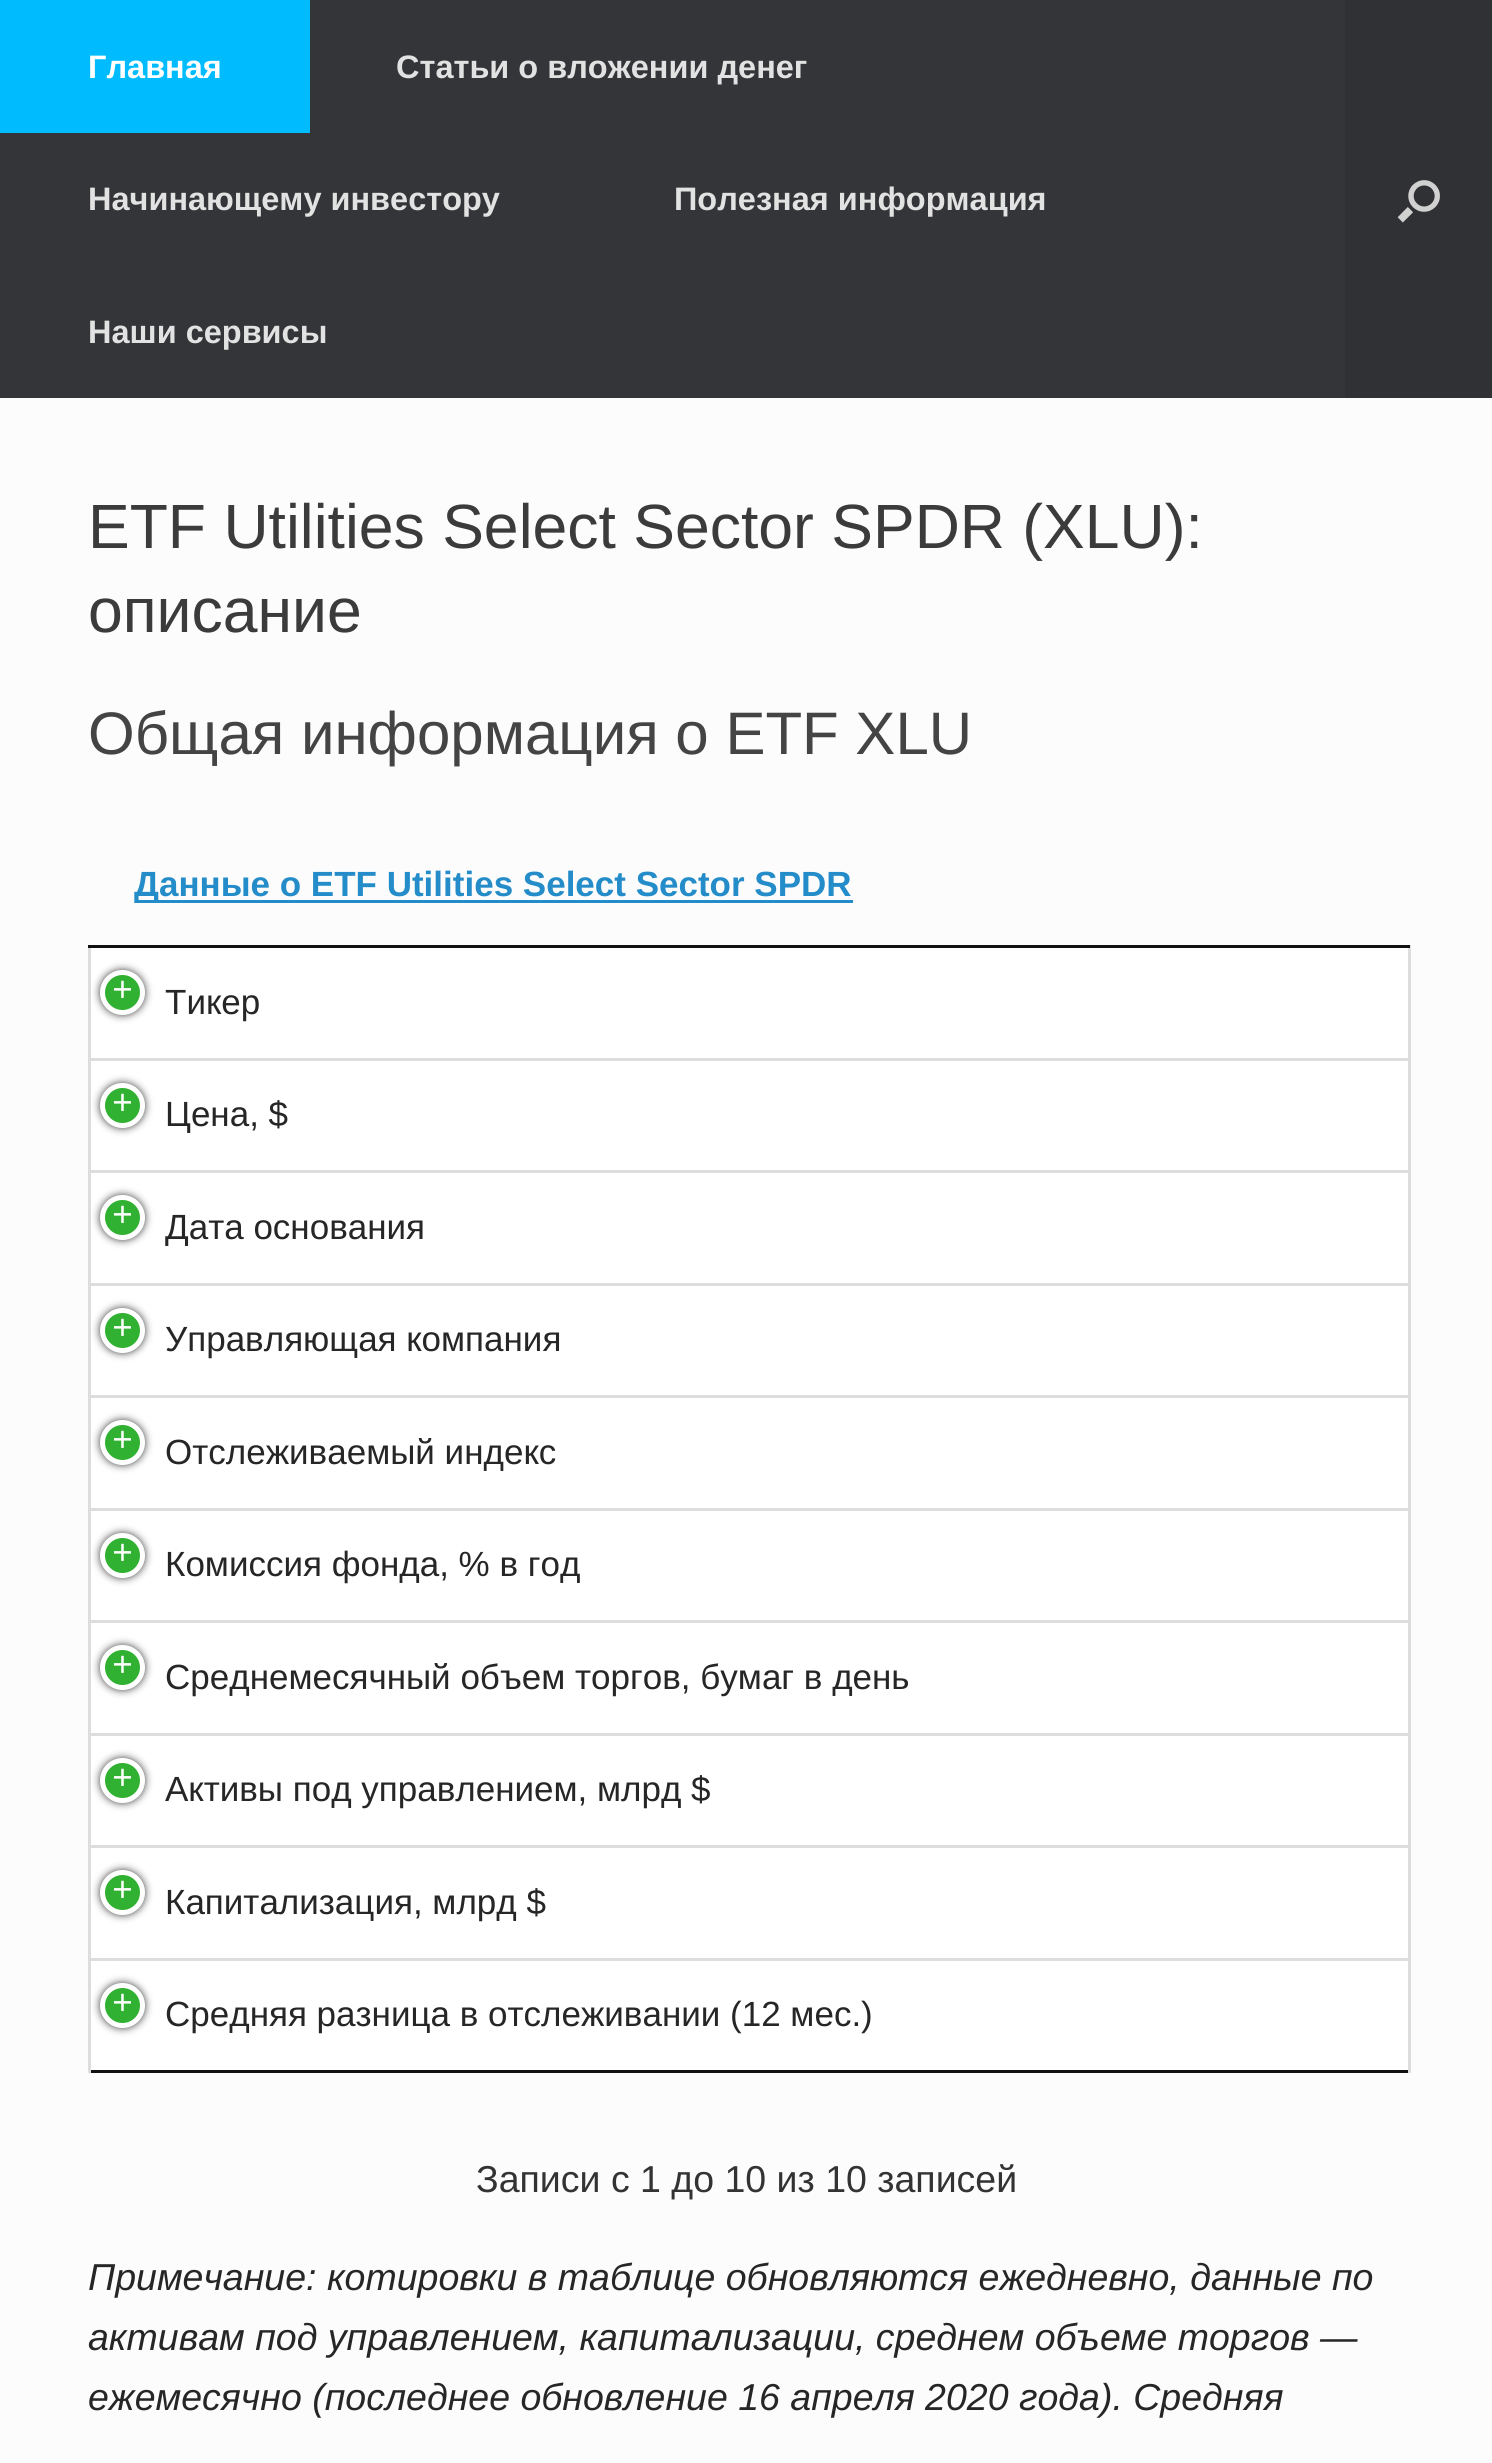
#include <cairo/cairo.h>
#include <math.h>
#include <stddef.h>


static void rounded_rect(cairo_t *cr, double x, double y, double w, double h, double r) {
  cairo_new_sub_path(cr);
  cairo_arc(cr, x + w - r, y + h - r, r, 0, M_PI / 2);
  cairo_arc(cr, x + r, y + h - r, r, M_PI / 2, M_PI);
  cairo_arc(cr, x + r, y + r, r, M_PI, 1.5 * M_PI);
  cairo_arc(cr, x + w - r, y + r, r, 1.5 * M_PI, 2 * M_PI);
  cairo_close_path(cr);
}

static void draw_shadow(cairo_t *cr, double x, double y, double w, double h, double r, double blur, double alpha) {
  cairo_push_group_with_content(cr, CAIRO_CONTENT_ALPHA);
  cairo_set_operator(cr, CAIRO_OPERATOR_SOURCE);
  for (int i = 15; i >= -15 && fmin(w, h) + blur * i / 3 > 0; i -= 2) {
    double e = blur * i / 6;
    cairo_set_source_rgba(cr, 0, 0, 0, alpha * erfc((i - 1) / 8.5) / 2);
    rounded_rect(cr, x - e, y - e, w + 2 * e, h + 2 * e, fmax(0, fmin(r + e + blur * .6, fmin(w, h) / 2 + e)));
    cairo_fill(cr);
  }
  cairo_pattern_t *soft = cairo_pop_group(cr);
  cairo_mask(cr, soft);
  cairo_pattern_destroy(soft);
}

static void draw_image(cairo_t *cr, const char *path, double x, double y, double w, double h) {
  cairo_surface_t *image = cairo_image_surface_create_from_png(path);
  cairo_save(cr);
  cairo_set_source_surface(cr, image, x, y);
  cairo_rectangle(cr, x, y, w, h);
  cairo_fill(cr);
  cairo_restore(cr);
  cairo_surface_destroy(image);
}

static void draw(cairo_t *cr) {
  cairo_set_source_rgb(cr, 252 / 255.0, 252 / 255.0, 252 / 255.0);
  cairo_paint(cr);
  cairo_set_source_rgb(cr, 52 / 255.0, 53 / 255.0, 56 / 255.0);
  cairo_rectangle(cr, 0, 0, 1345, 398);
  cairo_fill(cr);
  cairo_set_source_rgb(cr, 0, 188 / 255.0, 1);
  cairo_rectangle(cr, 0, 0, 310, 133);
  cairo_fill(cr);
  cairo_set_source_rgb(cr, 48 / 255.0, 49 / 255.0, 52 / 255.0);
  cairo_rectangle(cr, 1345, 0, 147, 398);
  cairo_fill(cr);
  draw_image(cr, "images/1.png", 1397, 180, 43, 43);
  cairo_set_source_rgb(cr, 17 / 255.0, 17 / 255.0, 17 / 255.0);
  cairo_rectangle(cr, 88, 2070, 1322, 3);
  cairo_fill(cr);
  cairo_set_source_rgb(cr, 221 / 255.0, 221 / 255.0, 221 / 255.0);
  cairo_rectangle(cr, 88, 1058, 1322, 3);
  cairo_fill(cr);
  cairo_rectangle(cr, 88, 1170, 1322, 3);
  cairo_fill(cr);
  cairo_rectangle(cr, 88, 1283, 1322, 3);
  cairo_fill(cr);
  cairo_rectangle(cr, 88, 1395, 1322, 3);
  cairo_fill(cr);
  cairo_rectangle(cr, 88, 1508, 1322, 3);
  cairo_fill(cr);
  cairo_rectangle(cr, 88, 1620, 1322, 3);
  cairo_fill(cr);
  cairo_rectangle(cr, 88, 1733, 1322, 3);
  cairo_fill(cr);
  cairo_rectangle(cr, 88, 1845, 1322, 3);
  cairo_fill(cr);
  cairo_rectangle(cr, 88, 1958, 1322, 3);
  cairo_fill(cr);
  cairo_rectangle(cr, 1408, 1958, 3, 115);
  cairo_fill(cr);
  cairo_rectangle(cr, 1408, 1845, 3, 115);
  cairo_fill(cr);
  cairo_rectangle(cr, 1408, 1733, 3, 115);
  cairo_fill(cr);
  cairo_rectangle(cr, 1408, 1620, 3, 115);
  cairo_fill(cr);
  cairo_rectangle(cr, 1408, 1508, 3, 115);
  cairo_fill(cr);
  cairo_rectangle(cr, 1408, 1395, 3, 115);
  cairo_fill(cr);
  cairo_rectangle(cr, 1408, 1283, 3, 115);
  cairo_fill(cr);
  cairo_rectangle(cr, 1408, 1170, 3, 115);
  cairo_fill(cr);
  cairo_rectangle(cr, 1408, 945, 3, 228);
  cairo_fill(cr);
  cairo_rectangle(cr, 88, 1958, 3, 115);
  cairo_fill(cr);
  cairo_rectangle(cr, 88, 1845, 3, 115);
  cairo_fill(cr);
  cairo_rectangle(cr, 88, 1733, 3, 115);
  cairo_fill(cr);
  cairo_rectangle(cr, 88, 1620, 3, 115);
  cairo_fill(cr);
  cairo_rectangle(cr, 88, 1508, 3, 115);
  cairo_fill(cr);
  cairo_rectangle(cr, 88, 1395, 3, 115);
  cairo_fill(cr);
  cairo_rectangle(cr, 88, 1283, 3, 115);
  cairo_fill(cr);
  cairo_rectangle(cr, 88, 1170, 3, 115);
  cairo_fill(cr);
  cairo_rectangle(cr, 88, 945, 3, 228);
  cairo_fill(cr);
  cairo_set_source_rgb(cr, 17 / 255.0, 17 / 255.0, 17 / 255.0);
  cairo_rectangle(cr, 88, 945, 1322, 3);
  cairo_fill(cr);
  cairo_set_source_rgb(cr, 36 / 255.0, 140 / 255.0, 200 / 255.0);
  cairo_rectangle(cr, 135, 900, 718, 3);
  cairo_fill(cr);
  cairo_set_source_rgb(cr, 1, 1, 1);
  cairo_rectangle(cr, 91, 948, 1317, 110);
  cairo_fill(cr);
  cairo_set_source_rgb(cr, 68 / 255.0, 68 / 255.0, 68 / 255.0);
  draw_shadow(cr, 100, 970, 45, 45, 22.5, 4, 1);
  cairo_set_source_rgb(cr, 49 / 255.0, 177 / 255.0, 49 / 255.0);
  cairo_arc(cr, 122.5, 992.5, 20, 0, 2 * M_PI);
  cairo_fill_preserve(cr);
  cairo_set_source_rgb(cr, 1, 1, 1);
  cairo_set_line_width(cr, 5);
  cairo_stroke(cr);
  cairo_rectangle(cr, 91, 1061, 1317, 109);
  cairo_fill(cr);
  cairo_set_source_rgb(cr, 68 / 255.0, 68 / 255.0, 68 / 255.0);
  draw_shadow(cr, 100, 1083, 45, 45, 22.5, 4, 1);
  cairo_set_source_rgb(cr, 49 / 255.0, 177 / 255.0, 49 / 255.0);
  cairo_arc(cr, 122.5, 1105.5, 20, 0, 2 * M_PI);
  cairo_fill_preserve(cr);
  cairo_set_source_rgb(cr, 1, 1, 1);
  cairo_stroke(cr);
  cairo_rectangle(cr, 91, 1173, 1317, 110);
  cairo_fill(cr);
  cairo_set_source_rgb(cr, 68 / 255.0, 68 / 255.0, 68 / 255.0);
  draw_shadow(cr, 100, 1195, 45, 45, 22.5, 4, 1);
  cairo_set_source_rgb(cr, 49 / 255.0, 177 / 255.0, 49 / 255.0);
  cairo_arc(cr, 122.5, 1217.5, 20, 0, 2 * M_PI);
  cairo_fill_preserve(cr);
  cairo_set_source_rgb(cr, 1, 1, 1);
  cairo_stroke(cr);
  cairo_rectangle(cr, 91, 1286, 1317, 109);
  cairo_fill(cr);
  cairo_set_source_rgb(cr, 68 / 255.0, 68 / 255.0, 68 / 255.0);
  draw_shadow(cr, 100, 1308, 45, 45, 22.5, 4, 1);
  cairo_set_source_rgb(cr, 49 / 255.0, 177 / 255.0, 49 / 255.0);
  cairo_arc(cr, 122.5, 1330.5, 20, 0, 2 * M_PI);
  cairo_fill_preserve(cr);
  cairo_set_source_rgb(cr, 1, 1, 1);
  cairo_stroke(cr);
  cairo_rectangle(cr, 91, 1398, 1317, 110);
  cairo_fill(cr);
  cairo_set_source_rgb(cr, 68 / 255.0, 68 / 255.0, 68 / 255.0);
  draw_shadow(cr, 100, 1420, 45, 45, 22.5, 4, 1);
  cairo_set_source_rgb(cr, 49 / 255.0, 177 / 255.0, 49 / 255.0);
  cairo_arc(cr, 122.5, 1442.5, 20, 0, 2 * M_PI);
  cairo_fill_preserve(cr);
  cairo_set_source_rgb(cr, 1, 1, 1);
  cairo_stroke(cr);
  cairo_rectangle(cr, 91, 1511, 1317, 109);
  cairo_fill(cr);
  cairo_set_source_rgb(cr, 68 / 255.0, 68 / 255.0, 68 / 255.0);
  draw_shadow(cr, 100, 1533, 45, 45, 22.5, 4, 1);
  cairo_set_source_rgb(cr, 49 / 255.0, 177 / 255.0, 49 / 255.0);
  cairo_arc(cr, 122.5, 1555.5, 20, 0, 2 * M_PI);
  cairo_fill_preserve(cr);
  cairo_set_source_rgb(cr, 1, 1, 1);
  cairo_stroke(cr);
  cairo_rectangle(cr, 91, 1623, 1317, 110);
  cairo_fill(cr);
  cairo_set_source_rgb(cr, 68 / 255.0, 68 / 255.0, 68 / 255.0);
  draw_shadow(cr, 100, 1645, 45, 45, 22.5, 4, 1);
  cairo_set_source_rgb(cr, 49 / 255.0, 177 / 255.0, 49 / 255.0);
  cairo_arc(cr, 122.5, 1667.5, 20, 0, 2 * M_PI);
  cairo_fill_preserve(cr);
  cairo_set_source_rgb(cr, 1, 1, 1);
  cairo_stroke(cr);
  cairo_rectangle(cr, 91, 1736, 1317, 109);
  cairo_fill(cr);
  cairo_set_source_rgb(cr, 68 / 255.0, 68 / 255.0, 68 / 255.0);
  draw_shadow(cr, 100, 1758, 45, 45, 22.5, 4, 1);
  cairo_set_source_rgb(cr, 49 / 255.0, 177 / 255.0, 49 / 255.0);
  cairo_arc(cr, 122.5, 1780.5, 20, 0, 2 * M_PI);
  cairo_fill_preserve(cr);
  cairo_set_source_rgb(cr, 1, 1, 1);
  cairo_stroke(cr);
  cairo_rectangle(cr, 91, 1848, 1317, 110);
  cairo_fill(cr);
  cairo_set_source_rgb(cr, 68 / 255.0, 68 / 255.0, 68 / 255.0);
  draw_shadow(cr, 100, 1870, 45, 45, 22.5, 4, 1);
  cairo_set_source_rgb(cr, 49 / 255.0, 177 / 255.0, 49 / 255.0);
  cairo_arc(cr, 122.5, 1892.5, 20, 0, 2 * M_PI);
  cairo_fill_preserve(cr);
  cairo_set_source_rgb(cr, 1, 1, 1);
  cairo_stroke(cr);
  cairo_rectangle(cr, 91, 1961, 1317, 109);
  cairo_fill(cr);
  cairo_set_source_rgb(cr, 68 / 255.0, 68 / 255.0, 68 / 255.0);
  draw_shadow(cr, 100, 1983, 45, 45, 22.5, 4, 1);
  cairo_set_source_rgb(cr, 49 / 255.0, 177 / 255.0, 49 / 255.0);
  cairo_arc(cr, 122.5, 2005.5, 20, 0, 2 * M_PI);
  cairo_fill_preserve(cr);
  cairo_set_source_rgb(cr, 1, 1, 1);
  cairo_stroke(cr);
  cairo_select_font_face(cr, "Liberation Sans", CAIRO_FONT_SLANT_NORMAL, CAIRO_FONT_WEIGHT_BOLD);
  cairo_set_font_size(cr, 32.5);
  cairo_move_to(cr, 88, 78);
  cairo_show_text(cr, "Главная");
  cairo_set_source_rgb(cr, 226 / 255.0, 226 / 255.0, 226 / 255.0);
  cairo_move_to(cr, 396, 78);
  cairo_show_text(cr, "Статьи о вложении денег");
  cairo_move_to(cr, 88, 210);
  cairo_show_text(cr, "Начинающему инвестору");
  cairo_move_to(cr, 674, 210);
  cairo_show_text(cr, "Полезная информация");
  cairo_move_to(cr, 88, 343);
  cairo_show_text(cr, "Наши сервисы");
  cairo_select_font_face(cr, "Liberation Sans", CAIRO_FONT_SLANT_NORMAL, CAIRO_FONT_WEIGHT_NORMAL);
  cairo_set_font_size(cr, 62.5);
  cairo_set_source_rgb(cr, 59 / 255.0, 59 / 255.0, 59 / 255.0);
  cairo_move_to(cr, 88, 548);
  cairo_show_text(cr, "ETF Utilities Select Sector SPDR (XLU):");
  cairo_move_to(cr, 88, 632);
  cairo_show_text(cr, "описание");
  cairo_set_font_size(cr, 60);
  cairo_set_source_rgb(cr, 68 / 255.0, 68 / 255.0, 68 / 255.0);
  cairo_move_to(cr, 88, 754);
  cairo_show_text(cr, "Общая информация о ETF XLU");
  cairo_select_font_face(cr, "Liberation Sans", CAIRO_FONT_SLANT_NORMAL, CAIRO_FONT_WEIGHT_BOLD);
  cairo_set_font_size(cr, 35);
  cairo_set_source_rgb(cr, 36 / 255.0, 140 / 255.0, 200 / 255.0);
  cairo_move_to(cr, 134, 896);
  cairo_show_text(cr, "Данные о ETF Utilities Select Sector SPDR");
  cairo_select_font_face(cr, "Liberation Mono", CAIRO_FONT_SLANT_NORMAL, CAIRO_FONT_WEIGHT_NORMAL);
  cairo_set_source_rgb(cr, 1, 1, 1);
  cairo_move_to(cr, 112, 1001);
  cairo_show_text(cr, "+");
  cairo_select_font_face(cr, "Liberation Sans", CAIRO_FONT_SLANT_NORMAL, CAIRO_FONT_WEIGHT_NORMAL);
  cairo_set_source_rgb(cr, 38 / 255.0, 38 / 255.0, 38 / 255.0);
  cairo_move_to(cr, 165, 1014);
  cairo_show_text(cr, "Тикер");
  cairo_select_font_face(cr, "Liberation Mono", CAIRO_FONT_SLANT_NORMAL, CAIRO_FONT_WEIGHT_NORMAL);
  cairo_set_source_rgb(cr, 1, 1, 1);
  cairo_move_to(cr, 112, 1114);
  cairo_show_text(cr, "+");
  cairo_select_font_face(cr, "Liberation Sans", CAIRO_FONT_SLANT_NORMAL, CAIRO_FONT_WEIGHT_NORMAL);
  cairo_set_source_rgb(cr, 38 / 255.0, 38 / 255.0, 38 / 255.0);
  cairo_move_to(cr, 165, 1126);
  cairo_show_text(cr, "Цена, $");
  cairo_select_font_face(cr, "Liberation Mono", CAIRO_FONT_SLANT_NORMAL, CAIRO_FONT_WEIGHT_NORMAL);
  cairo_set_source_rgb(cr, 1, 1, 1);
  cairo_move_to(cr, 112, 1226);
  cairo_show_text(cr, "+");
  cairo_select_font_face(cr, "Liberation Sans", CAIRO_FONT_SLANT_NORMAL, CAIRO_FONT_WEIGHT_NORMAL);
  cairo_set_source_rgb(cr, 38 / 255.0, 38 / 255.0, 38 / 255.0);
  cairo_move_to(cr, 165, 1239);
  cairo_show_text(cr, "Дата основания");
  cairo_select_font_face(cr, "Liberation Mono", CAIRO_FONT_SLANT_NORMAL, CAIRO_FONT_WEIGHT_NORMAL);
  cairo_set_source_rgb(cr, 1, 1, 1);
  cairo_move_to(cr, 112, 1339);
  cairo_show_text(cr, "+");
  cairo_select_font_face(cr, "Liberation Sans", CAIRO_FONT_SLANT_NORMAL, CAIRO_FONT_WEIGHT_NORMAL);
  cairo_set_source_rgb(cr, 38 / 255.0, 38 / 255.0, 38 / 255.0);
  cairo_move_to(cr, 165, 1351);
  cairo_show_text(cr, "Управляющая компания");
  cairo_select_font_face(cr, "Liberation Mono", CAIRO_FONT_SLANT_NORMAL, CAIRO_FONT_WEIGHT_NORMAL);
  cairo_set_source_rgb(cr, 1, 1, 1);
  cairo_move_to(cr, 112, 1451);
  cairo_show_text(cr, "+");
  cairo_select_font_face(cr, "Liberation Sans", CAIRO_FONT_SLANT_NORMAL, CAIRO_FONT_WEIGHT_NORMAL);
  cairo_set_source_rgb(cr, 38 / 255.0, 38 / 255.0, 38 / 255.0);
  cairo_move_to(cr, 165, 1464);
  cairo_show_text(cr, "Отслеживаемый индекс");
  cairo_select_font_face(cr, "Liberation Mono", CAIRO_FONT_SLANT_NORMAL, CAIRO_FONT_WEIGHT_NORMAL);
  cairo_set_source_rgb(cr, 1, 1, 1);
  cairo_move_to(cr, 112, 1564);
  cairo_show_text(cr, "+");
  cairo_select_font_face(cr, "Liberation Sans", CAIRO_FONT_SLANT_NORMAL, CAIRO_FONT_WEIGHT_NORMAL);
  cairo_set_source_rgb(cr, 38 / 255.0, 38 / 255.0, 38 / 255.0);
  cairo_move_to(cr, 165, 1576);
  cairo_show_text(cr, "Комиссия фонда, % в год");
  cairo_select_font_face(cr, "Liberation Mono", CAIRO_FONT_SLANT_NORMAL, CAIRO_FONT_WEIGHT_NORMAL);
  cairo_set_source_rgb(cr, 1, 1, 1);
  cairo_move_to(cr, 112, 1676);
  cairo_show_text(cr, "+");
  cairo_select_font_face(cr, "Liberation Sans", CAIRO_FONT_SLANT_NORMAL, CAIRO_FONT_WEIGHT_NORMAL);
  cairo_set_source_rgb(cr, 38 / 255.0, 38 / 255.0, 38 / 255.0);
  cairo_move_to(cr, 165, 1689);
  cairo_show_text(cr, "Среднемесячный объем торгов, бумаг в день");
  cairo_select_font_face(cr, "Liberation Mono", CAIRO_FONT_SLANT_NORMAL, CAIRO_FONT_WEIGHT_NORMAL);
  cairo_set_source_rgb(cr, 1, 1, 1);
  cairo_move_to(cr, 112, 1789);
  cairo_show_text(cr, "+");
  cairo_select_font_face(cr, "Liberation Sans", CAIRO_FONT_SLANT_NORMAL, CAIRO_FONT_WEIGHT_NORMAL);
  cairo_set_source_rgb(cr, 38 / 255.0, 38 / 255.0, 38 / 255.0);
  cairo_move_to(cr, 165, 1801);
  cairo_show_text(cr, "Активы под управлением, млрд $");
  cairo_select_font_face(cr, "Liberation Mono", CAIRO_FONT_SLANT_NORMAL, CAIRO_FONT_WEIGHT_NORMAL);
  cairo_set_source_rgb(cr, 1, 1, 1);
  cairo_move_to(cr, 112, 1901);
  cairo_show_text(cr, "+");
  cairo_select_font_face(cr, "Liberation Sans", CAIRO_FONT_SLANT_NORMAL, CAIRO_FONT_WEIGHT_NORMAL);
  cairo_set_source_rgb(cr, 38 / 255.0, 38 / 255.0, 38 / 255.0);
  cairo_move_to(cr, 165, 1914);
  cairo_show_text(cr, "Капитализация, млрд $");
  cairo_select_font_face(cr, "Liberation Mono", CAIRO_FONT_SLANT_NORMAL, CAIRO_FONT_WEIGHT_NORMAL);
  cairo_set_source_rgb(cr, 1, 1, 1);
  cairo_move_to(cr, 112, 2014);
  cairo_show_text(cr, "+");
  cairo_select_font_face(cr, "Liberation Sans", CAIRO_FONT_SLANT_NORMAL, CAIRO_FONT_WEIGHT_NORMAL);
  cairo_set_source_rgb(cr, 38 / 255.0, 38 / 255.0, 38 / 255.0);
  cairo_move_to(cr, 165, 2026);
  cairo_show_text(cr, "Средняя разница в отслеживании (12 мес.)");
  cairo_set_font_size(cr, 37.5);
  cairo_set_source_rgb(cr, 51 / 255.0, 51 / 255.0, 51 / 255.0);
  cairo_move_to(cr, 476, 2192);
  cairo_show_text(cr, "Записи с 1 до 10 из 10 записей");
  cairo_select_font_face(cr, "Liberation Sans", CAIRO_FONT_SLANT_ITALIC, CAIRO_FONT_WEIGHT_NORMAL);
  cairo_set_source_rgb(cr, 38 / 255.0, 38 / 255.0, 38 / 255.0);
  cairo_move_to(cr, 88, 2290);
  cairo_show_text(cr, "Примечание: котировки в таблице обновляются ежедневно, данные по");
  cairo_move_to(cr, 88, 2350);
  cairo_show_text(cr, "активам под управлением, капитализации, среднем объеме торгов —");
  cairo_move_to(cr, 88, 2410);
  cairo_show_text(cr, "ежемесячно (последнее обновление 16 апреля 2020 года). Средняя");
}

int main(void) {
  cairo_surface_t *surface = cairo_image_surface_create(CAIRO_FORMAT_RGB24, 1492, 2463);
  cairo_t *cr = cairo_create(surface);
  cairo_font_options_t *options = cairo_font_options_create();
  cairo_font_options_set_hint_metrics(options, CAIRO_HINT_METRICS_OFF);
  cairo_font_options_set_hint_style(options, CAIRO_HINT_STYLE_NONE);
  cairo_set_font_options(cr, options);
  cairo_set_miter_limit(cr, 4);
  draw(cr);
  cairo_surface_write_to_png(surface, "out.png");
  cairo_font_options_destroy(options);
  cairo_destroy(cr);
  cairo_surface_destroy(surface);
  return 0;
}
